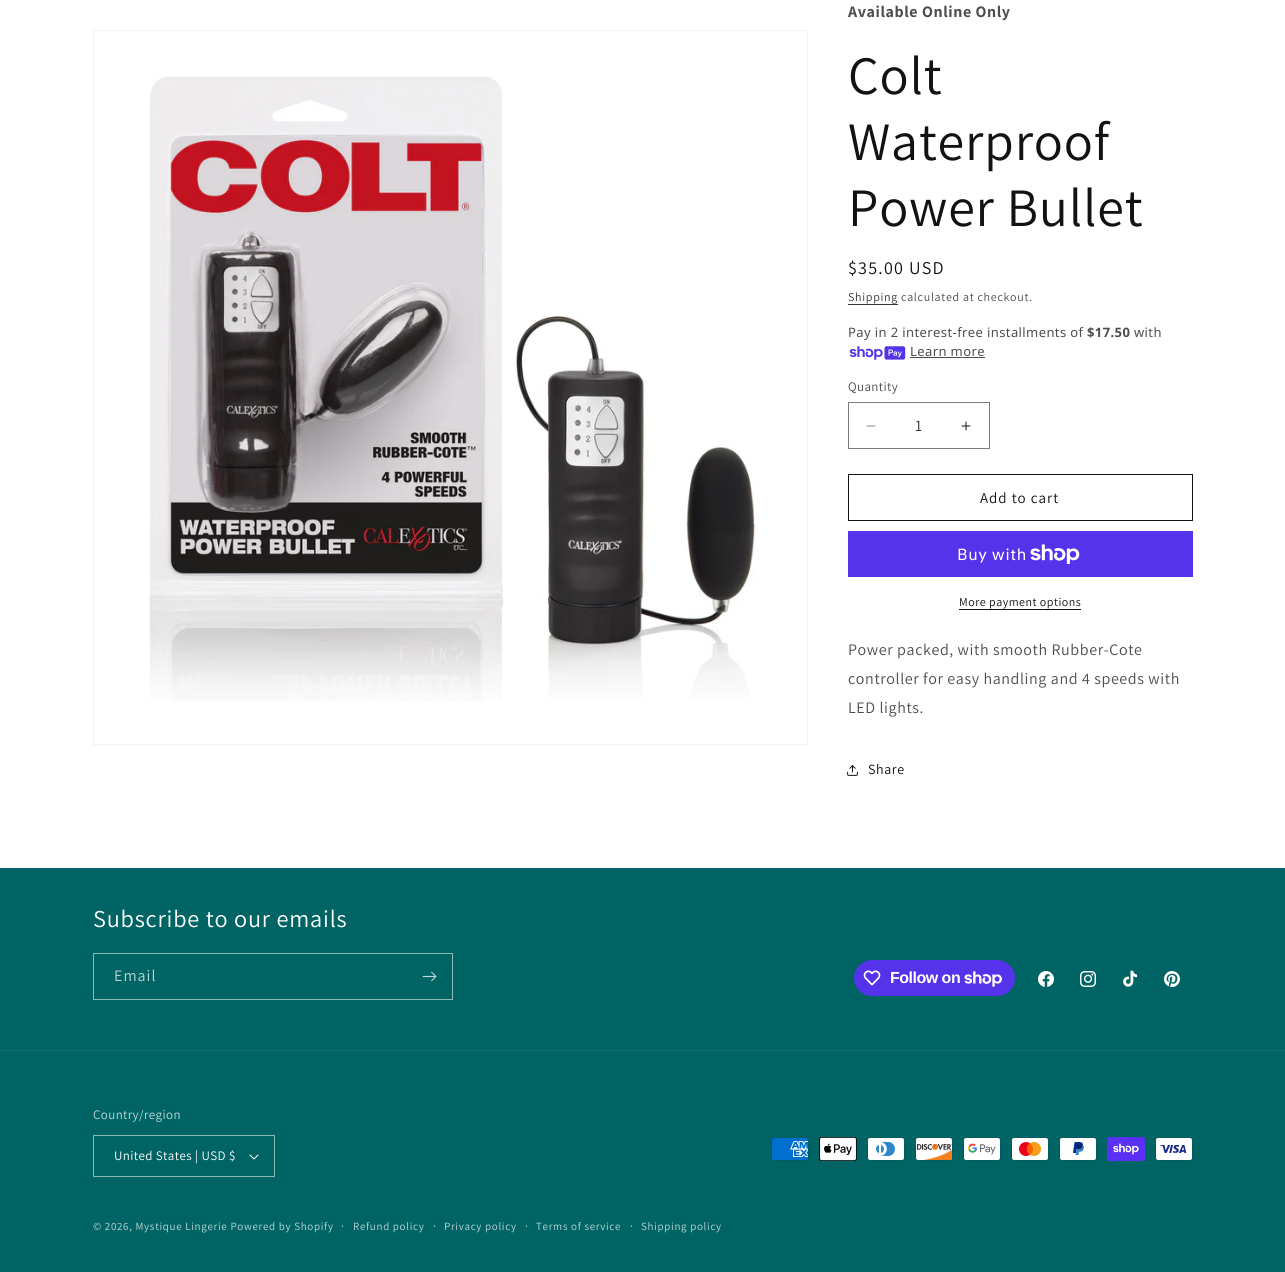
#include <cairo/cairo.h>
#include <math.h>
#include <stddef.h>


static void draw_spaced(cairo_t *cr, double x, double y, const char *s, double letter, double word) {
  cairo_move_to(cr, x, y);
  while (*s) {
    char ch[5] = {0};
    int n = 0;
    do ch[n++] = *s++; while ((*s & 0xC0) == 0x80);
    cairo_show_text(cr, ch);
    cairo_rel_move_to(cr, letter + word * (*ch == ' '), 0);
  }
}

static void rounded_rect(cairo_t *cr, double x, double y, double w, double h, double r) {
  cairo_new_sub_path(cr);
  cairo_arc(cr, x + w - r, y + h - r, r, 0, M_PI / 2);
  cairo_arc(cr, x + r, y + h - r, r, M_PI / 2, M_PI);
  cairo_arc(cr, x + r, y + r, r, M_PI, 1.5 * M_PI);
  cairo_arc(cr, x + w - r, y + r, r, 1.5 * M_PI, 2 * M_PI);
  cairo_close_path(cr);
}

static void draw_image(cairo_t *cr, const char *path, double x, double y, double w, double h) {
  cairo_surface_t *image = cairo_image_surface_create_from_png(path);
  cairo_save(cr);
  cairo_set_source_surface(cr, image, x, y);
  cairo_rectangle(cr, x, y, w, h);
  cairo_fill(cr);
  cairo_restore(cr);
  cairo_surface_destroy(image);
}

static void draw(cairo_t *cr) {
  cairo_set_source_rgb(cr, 1, 1, 1);
  cairo_paint(cr);
  cairo_rectangle(cr, 93.5, 30.5, 714, 714);
  cairo_set_source_rgb(cr, 243 / 255.0, 243 / 255.0, 243 / 255.0);
  cairo_set_line_width(cr, 1);
  cairo_stroke(cr);
  draw_image(cr, "images/1.png", 149, 76, 607, 626);
  cairo_set_source_rgb(cr, 54 / 255.0, 54 / 255.0, 54 / 255.0);
  cairo_rectangle(cr, 848, 304, 50, 1);
  cairo_fill(cr);
  draw_image(cr, "images/2.png", 849, 346, 57, 14);
  cairo_set_source_rgb(cr, 77 / 255.0, 77 / 255.0, 77 / 255.0);
  cairo_rectangle(cr, 910, 357, 75, 1);
  cairo_fill(cr);
  draw_image(cr, "images/3.png", 866, 425, 10, 2);
  draw_image(cr, "images/4.png", 961, 421, 10, 10);
  cairo_rectangle(cr, 848.5, 402.5, 141, 46);
  cairo_set_source_rgb(cr, 125 / 255.0, 125 / 255.0, 125 / 255.0);
  cairo_stroke(cr);
  cairo_rectangle(cr, 848.5, 474.5, 344, 46);
  cairo_set_source_rgb(cr, 18 / 255.0, 18 / 255.0, 18 / 255.0);
  cairo_stroke(cr);
  cairo_set_source_rgb(cr, 84 / 255.0, 51 / 255.0, 235 / 255.0);
  cairo_rectangle(cr, 848, 531, 345, 46);
  cairo_fill(cr);
  draw_image(cr, "images/5.png", 1030, 544, 50, 20);
  cairo_set_source_rgb(cr, 18 / 255.0, 18 / 255.0, 18 / 255.0);
  cairo_rectangle(cr, 959, 609, 122, 1);
  cairo_fill(cr);
  draw_image(cr, "images/6.png", 847, 765, 11, 11);
  cairo_set_source_rgb(cr, 0, 100 / 255.0, 100 / 255.0);
  cairo_rectangle(cr, 0, 868, 1285, 404);
  cairo_fill(cr);
  cairo_rectangle(cr, 93.5, 953.5, 359, 46);
  cairo_set_source_rgb(cr, 140 / 255.0, 185 / 255.0, 185 / 255.0);
  cairo_stroke(cr);
  draw_image(cr, "images/7.png", 422, 971, 15, 11);
  cairo_set_source_rgb(cr, 84 / 255.0, 51 / 255.0, 235 / 255.0);
  rounded_rect(cr, 854, 960, 161, 36, 18);
  cairo_fill(cr);
  draw_image(cr, "images/8.png", 863, 970, 18, 16);
  draw_image(cr, "images/9.png", 964, 971, 38, 16);
  draw_image(cr, "images/10.png", 1038, 971, 16, 16);
  draw_image(cr, "images/11.png", 1080, 971, 16, 16);
  draw_image(cr, "images/12.png", 1123, 970, 15, 17);
  draw_image(cr, "images/13.png", 1164, 971, 16, 16);
  cairo_set_source_rgb(cr, 20 / 255.0, 112 / 255.0, 112 / 255.0);
  cairo_rectangle(cr, 0, 1050, 1285, 1);
  cairo_fill(cr);
  draw_image(cr, "images/14.png", 249, 1154, 10, 6);
  cairo_rectangle(cr, 93.5, 1135.5, 181, 41);
  cairo_set_source_rgb(cr, 140 / 255.0, 185 / 255.0, 185 / 255.0);
  cairo_stroke(cr);
  draw_image(cr, "images/15.png", 771, 1137, 38, 24);
  draw_image(cr, "images/16.png", 819, 1137, 38, 24);
  draw_image(cr, "images/17.png", 867, 1137, 38, 24);
  draw_image(cr, "images/18.png", 915, 1137, 38, 24);
  draw_image(cr, "images/19.png", 963, 1137, 38, 24);
  draw_image(cr, "images/20.png", 1011, 1137, 38, 24);
  draw_image(cr, "images/21.png", 1059, 1137, 38, 24);
  draw_image(cr, "images/22.png", 1107, 1137, 38, 24);
  draw_image(cr, "images/23.png", 1155, 1137, 38, 24);
  cairo_select_font_face(cr, "Assistant", CAIRO_FONT_SLANT_NORMAL, CAIRO_FONT_WEIGHT_BOLD);
  cairo_set_font_size(cr, 16);
  cairo_set_source_rgb(cr, 77 / 255.0, 77 / 255.0, 77 / 255.0);
  draw_spaced(cr, 848, 17, "Available Online Only", 0.6, 0);
  cairo_select_font_face(cr, "Assistant", CAIRO_FONT_SLANT_NORMAL, CAIRO_FONT_WEIGHT_NORMAL);
  cairo_set_font_size(cr, 54);
  cairo_set_source_rgb(cr, 18 / 255.0, 18 / 255.0, 18 / 255.0);
  draw_spaced(cr, 848, 94, "Colt", 0.8, 0);
  draw_spaced(cr, 848, 160, "Waterproof", 0.8, 0);
  draw_spaced(cr, 848, 226, "Power Bullet", 0.8, 0);
  cairo_set_font_size(cr, 18);
  draw_spaced(cr, 848, 274, "$35.00 USD", 1.25, 0);
  cairo_set_font_size(cr, 12);
  cairo_set_source_rgb(cr, 54 / 255.0, 54 / 255.0, 54 / 255.0);
  draw_spaced(cr, 848, 301, "Shipping", 0.7, 0);
  cairo_set_source_rgb(cr, 77 / 255.0, 77 / 255.0, 77 / 255.0);
  draw_spaced(cr, 901, 301, "calculated at checkout.", 0.7, 0);
  cairo_select_font_face(cr, "Noto Sans", CAIRO_FONT_SLANT_NORMAL, CAIRO_FONT_WEIGHT_NORMAL);
  cairo_set_font_size(cr, 13);
  draw_spaced(cr, 848, 337, "Pay in 2 interest-free installments of", 0.4, 0);
  cairo_select_font_face(cr, "Noto Sans", CAIRO_FONT_SLANT_NORMAL, CAIRO_FONT_WEIGHT_BOLD);
  draw_spaced(cr, 1087, 337, "$17.50", 0.4, 0);
  cairo_select_font_face(cr, "Noto Sans", CAIRO_FONT_SLANT_NORMAL, CAIRO_FONT_WEIGHT_NORMAL);
  draw_spaced(cr, 1134, 337, "with", 0.4, 0);
  draw_spaced(cr, 910, 356, "Learn more", 0.4, 0);
  cairo_select_font_face(cr, "Assistant", CAIRO_FONT_SLANT_NORMAL, CAIRO_FONT_WEIGHT_NORMAL);
  draw_spaced(cr, 848, 391, "Quantity", 0.4, 0);
  cairo_set_font_size(cr, 16);
  cairo_set_source_rgb(cr, 54 / 255.0, 54 / 255.0, 54 / 255.0);
  cairo_move_to(cr, 915, 431);
  cairo_show_text(cr, "1");
  cairo_set_font_size(cr, 15);
  cairo_set_source_rgb(cr, 18 / 255.0, 18 / 255.0, 18 / 255.0);
  draw_spaced(cr, 980, 503, "Add to cart", 1, 0);
  cairo_select_font_face(cr, "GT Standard", CAIRO_FONT_SLANT_NORMAL, CAIRO_FONT_WEIGHT_NORMAL);
  cairo_set_font_size(cr, 16);
  cairo_set_source_rgb(cr, 1, 1, 1);
  draw_spaced(cr, 957, 560, "Buy with", 0.6, 0);
  cairo_select_font_face(cr, "Assistant", CAIRO_FONT_SLANT_NORMAL, CAIRO_FONT_WEIGHT_NORMAL);
  cairo_set_font_size(cr, 12);
  cairo_set_source_rgb(cr, 18 / 255.0, 18 / 255.0, 18 / 255.0);
  draw_spaced(cr, 959, 606, "More payment options", 0.5, 0);
  cairo_set_font_size(cr, 16);
  cairo_set_source_rgb(cr, 77 / 255.0, 77 / 255.0, 77 / 255.0);
  draw_spaced(cr, 848, 655, "Power packed, with smooth Rubber-Cote", 0.6, 0);
  draw_spaced(cr, 848, 684, "controller for easy handling and 4 speeds with", 0.6, 0);
  draw_spaced(cr, 848, 713, "LED lights.", 0.6, 0);
  cairo_set_font_size(cr, 14);
  cairo_set_source_rgb(cr, 18 / 255.0, 18 / 255.0, 18 / 255.0);
  draw_spaced(cr, 868, 774, "Share", 0.6, 0);
  cairo_set_font_size(cr, 24.25);
  cairo_set_source_rgb(cr, 1, 1, 1);
  draw_spaced(cr, 93, 927, "Subscribe to our emails", 0.8, 0);
  cairo_set_font_size(cr, 16);
  cairo_set_source_rgb(cr, 191 / 255.0, 216 / 255.0, 216 / 255.0);
  draw_spaced(cr, 114, 981, "Email", 1, 0);
  cairo_select_font_face(cr, "Liberation Sans", CAIRO_FONT_SLANT_NORMAL, CAIRO_FONT_WEIGHT_BOLD);
  cairo_set_source_rgb(cr, 1, 1, 1);
  draw_spaced(cr, 890, 983, "Follow on", -0.5, 0);
  cairo_select_font_face(cr, "Assistant", CAIRO_FONT_SLANT_NORMAL, CAIRO_FONT_WEIGHT_NORMAL);
  cairo_set_font_size(cr, 13);
  cairo_set_source_rgb(cr, 191 / 255.0, 216 / 255.0, 216 / 255.0);
  draw_spaced(cr, 93, 1119, "Country/region", 0.4, 0);
  cairo_set_source_rgb(cr, 1, 1, 1);
  draw_spaced(cr, 114, 1160, "United States | USD $", 0.4, 0);
  cairo_set_font_size(cr, 11);
  cairo_set_source_rgb(cr, 191 / 255.0, 216 / 255.0, 216 / 255.0);
  draw_spaced(cr, 93, 1230, "© 2026, Mystique Lingerie Powered by Shopify", 0.7, 0);
  cairo_set_font_size(cr, 12);
  draw_spaced(cr, 341, 1230, "·", 0.7, 0);
  cairo_set_font_size(cr, 11);
  draw_spaced(cr, 353, 1230, "Refund policy", 0.7, 0);
  cairo_set_font_size(cr, 12);
  draw_spaced(cr, 433, 1230, "·", 0.7, 0);
  cairo_set_font_size(cr, 11);
  draw_spaced(cr, 444, 1230, "Privacy policy", 0.7, 0);
  cairo_set_font_size(cr, 12);
  draw_spaced(cr, 525, 1230, "·", 0.7, 0);
  cairo_set_font_size(cr, 11);
  draw_spaced(cr, 536, 1230, "Terms of service", 0.7, 0);
  cairo_set_font_size(cr, 12);
  draw_spaced(cr, 630, 1230, "·", 0.7, 0);
  cairo_set_font_size(cr, 11);
  draw_spaced(cr, 641, 1230, "Shipping policy", 0.7, 0);
}

int main(void) {
  cairo_surface_t *surface = cairo_image_surface_create(CAIRO_FORMAT_RGB24, 1285, 1272);
  cairo_t *cr = cairo_create(surface);
  cairo_font_options_t *options = cairo_font_options_create();
  cairo_font_options_set_hint_metrics(options, CAIRO_HINT_METRICS_OFF);
  cairo_font_options_set_hint_style(options, CAIRO_HINT_STYLE_NONE);
  cairo_set_font_options(cr, options);
  cairo_set_miter_limit(cr, 4);
  draw(cr);
  cairo_surface_write_to_png(surface, "out.png");
  cairo_font_options_destroy(options);
  cairo_destroy(cr);
  cairo_surface_destroy(surface);
  return 0;
}
